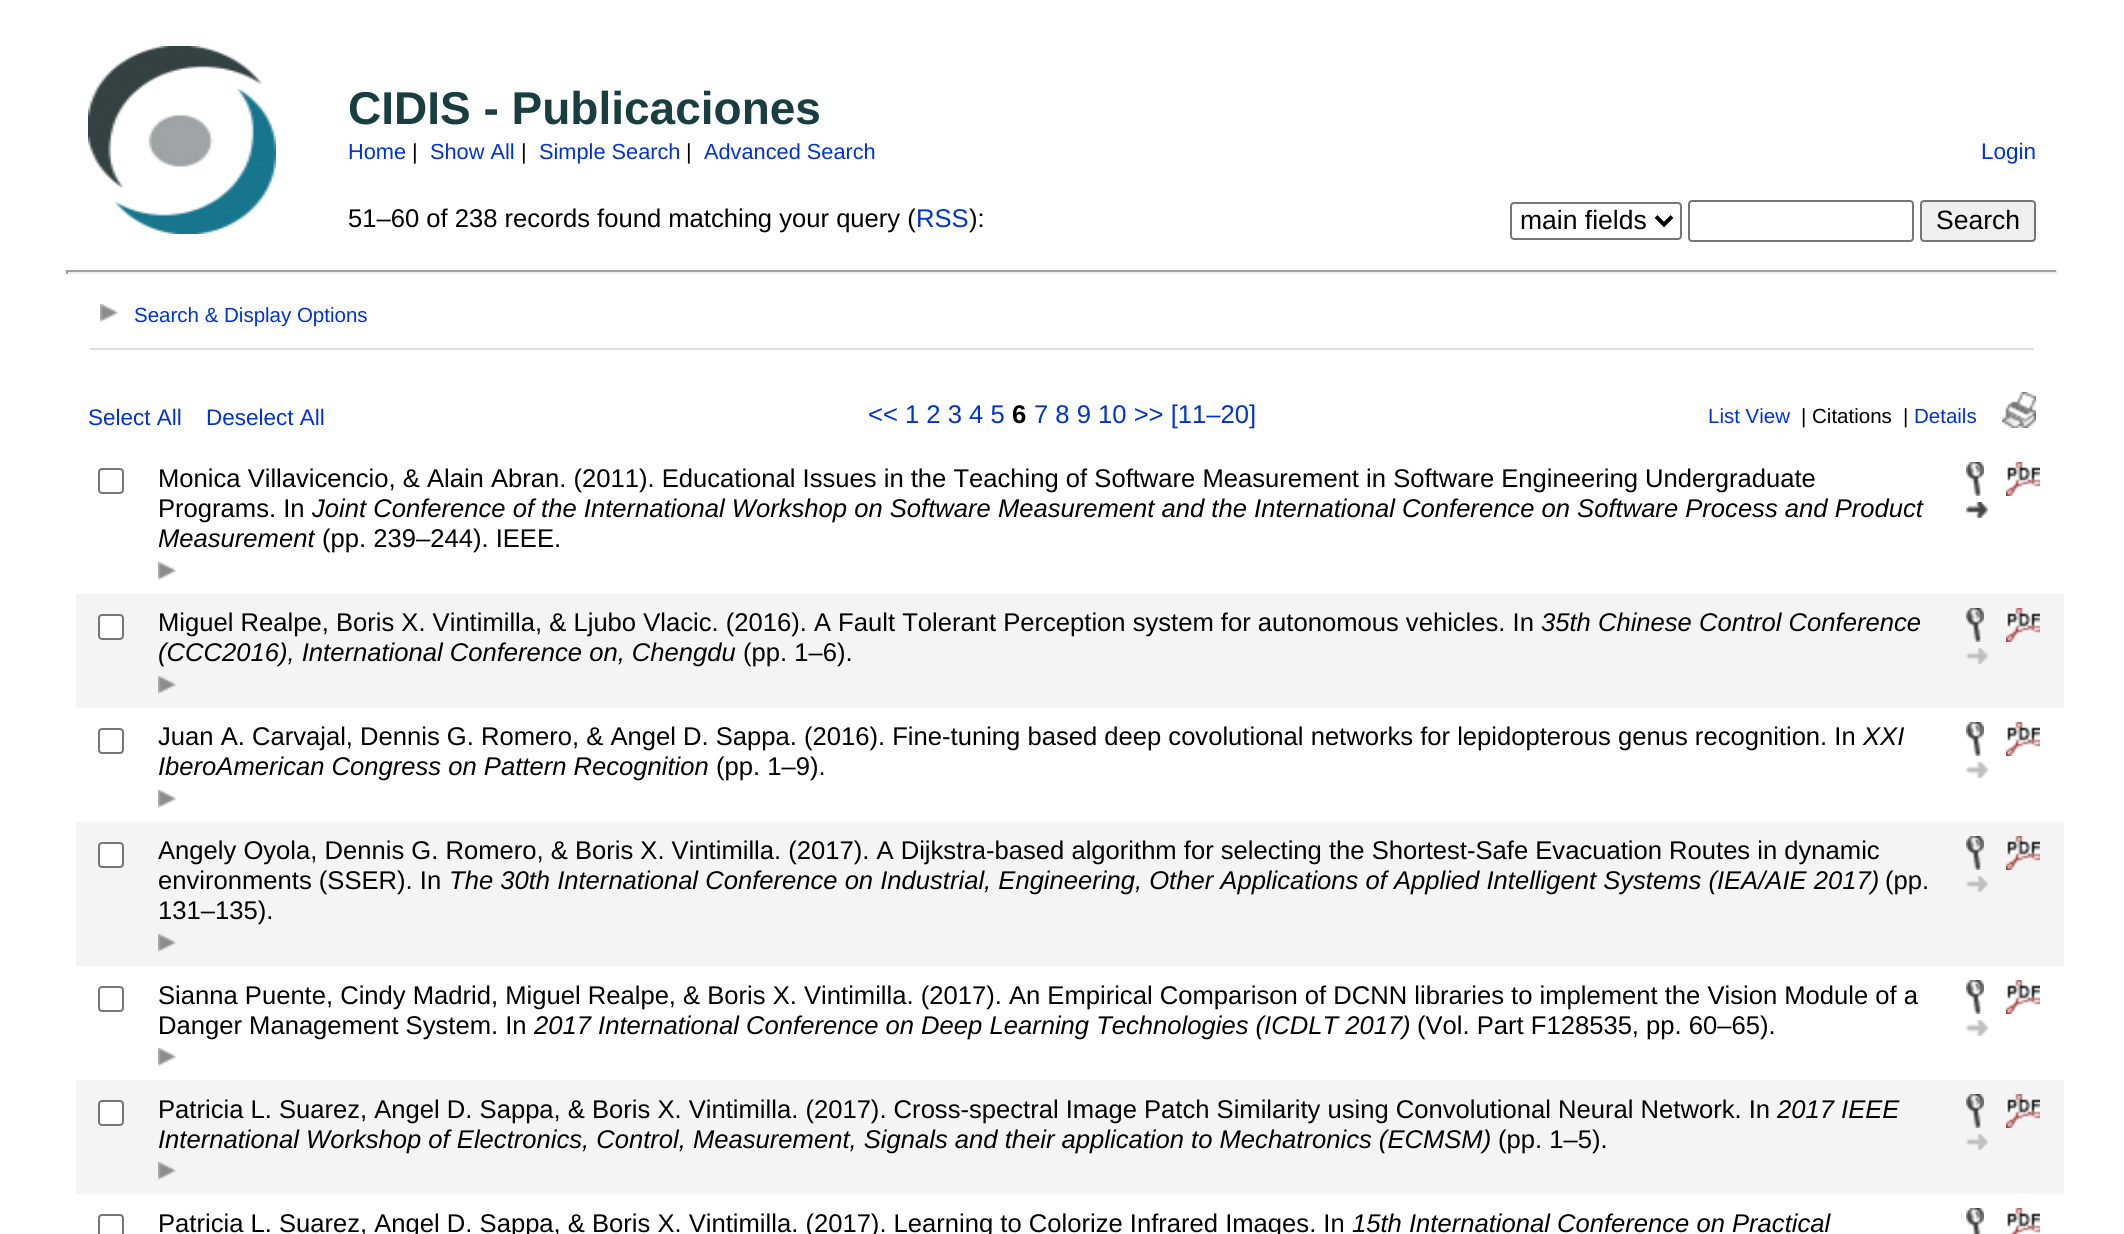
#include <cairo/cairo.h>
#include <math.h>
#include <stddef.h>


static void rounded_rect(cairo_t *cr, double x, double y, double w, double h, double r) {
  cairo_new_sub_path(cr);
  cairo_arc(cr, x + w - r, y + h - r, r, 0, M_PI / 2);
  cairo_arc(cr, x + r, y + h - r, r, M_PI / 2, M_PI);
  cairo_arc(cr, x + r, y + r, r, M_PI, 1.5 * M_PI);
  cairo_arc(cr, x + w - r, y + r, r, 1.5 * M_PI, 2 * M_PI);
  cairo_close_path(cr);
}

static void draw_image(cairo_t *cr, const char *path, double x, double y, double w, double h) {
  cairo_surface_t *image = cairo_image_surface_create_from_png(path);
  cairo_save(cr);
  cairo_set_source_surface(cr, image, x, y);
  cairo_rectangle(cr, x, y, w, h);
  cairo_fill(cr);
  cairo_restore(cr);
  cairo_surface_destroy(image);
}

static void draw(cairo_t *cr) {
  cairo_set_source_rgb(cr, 1, 1, 1);
  cairo_paint(cr);
  draw_image(cr, "images/1.png", 88, 46, 188, 188);
  rounded_rect(cr, 1511, 203, 170, 36, 3);
  cairo_set_source_rgb(cr, 118 / 255.0, 118 / 255.0, 118 / 255.0);
  cairo_stroke(cr);
  cairo_new_path(cr);
  cairo_move_to(cr, 1656, 216.5);
  cairo_line_to(cr, 1664, 224.5);
  cairo_line_to(cr, 1672, 216.5);
  cairo_set_source_rgb(cr, 0, 0, 0);
  cairo_set_line_width(cr, 4);
  cairo_stroke(cr);
  rounded_rect(cr, 1689, 201, 224, 40, 3);
  cairo_set_source_rgb(cr, 118 / 255.0, 118 / 255.0, 118 / 255.0);
  cairo_set_line_width(cr, 2);
  cairo_stroke(cr);
  cairo_set_source_rgb(cr, 239 / 255.0, 239 / 255.0, 239 / 255.0);
  rounded_rect(cr, 1921, 201, 114, 40, 3);
  cairo_fill_preserve(cr);
  cairo_set_source_rgb(cr, 118 / 255.0, 118 / 255.0, 118 / 255.0);
  cairo_stroke(cr);
  cairo_set_source_rgb(cr, 159 / 255.0, 159 / 255.0, 159 / 255.0);
  cairo_rectangle(cr, 66, 270, 1992, 2);
  cairo_fill(cr);
  cairo_set_source_rgb(cr, 238 / 255.0, 238 / 255.0, 238 / 255.0);
  cairo_rectangle(cr, 2056, 270, 2, 4);
  cairo_fill(cr);
  cairo_rectangle(cr, 66, 272, 1992, 2);
  cairo_fill(cr);
  cairo_set_source_rgb(cr, 159 / 255.0, 159 / 255.0, 159 / 255.0);
  cairo_rectangle(cr, 66, 270, 2, 4);
  cairo_fill(cr);
  draw_image(cr, "images/2.png", 100, 304, 18, 18);
  cairo_set_source_rgb(cr, 222 / 255.0, 222 / 255.0, 222 / 255.0);
  cairo_rectangle(cr, 90, 348, 1944, 2);
  cairo_fill(cr);
  draw_image(cr, "images/3.png", 2002, 392, 34, 36);
  rounded_rect(cr, 99, 469, 24, 24, 3);
  cairo_set_source_rgb(cr, 118 / 255.0, 118 / 255.0, 118 / 255.0);
  cairo_stroke(cr);
  draw_image(cr, "images/2.png", 158, 562, 18, 18);
  draw_image(cr, "images/4.png", 1966, 462, 18, 34);
  draw_image(cr, "images/5.png", 2006, 462, 34, 34);
  draw_image(cr, "images/6.png", 1966, 502, 22, 16);
  cairo_set_source_rgb(cr, 244 / 255.0, 244 / 255.0, 244 / 255.0);
  cairo_rectangle(cr, 76, 594, 1988, 114);
  cairo_fill(cr);
  cairo_set_source_rgb(cr, 1, 1, 1);
  rounded_rect(cr, 99, 615, 24, 24, 3);
  cairo_fill_preserve(cr);
  cairo_set_source_rgb(cr, 118 / 255.0, 118 / 255.0, 118 / 255.0);
  cairo_stroke(cr);
  draw_image(cr, "images/7.png", 158, 676, 18, 18);
  draw_image(cr, "images/8.png", 1966, 608, 18, 34);
  draw_image(cr, "images/9.png", 2006, 608, 34, 34);
  draw_image(cr, "images/10.png", 1966, 648, 22, 16);
  rounded_rect(cr, 99, 729, 24, 24, 3);
  cairo_stroke(cr);
  draw_image(cr, "images/2.png", 158, 790, 18, 18);
  draw_image(cr, "images/4.png", 1966, 722, 18, 34);
  draw_image(cr, "images/5.png", 2006, 722, 34, 34);
  draw_image(cr, "images/11.png", 1966, 762, 22, 16);
  cairo_set_source_rgb(cr, 244 / 255.0, 244 / 255.0, 244 / 255.0);
  cairo_rectangle(cr, 76, 822, 1988, 144);
  cairo_fill(cr);
  cairo_set_source_rgb(cr, 1, 1, 1);
  rounded_rect(cr, 99, 843, 24, 24, 3);
  cairo_fill_preserve(cr);
  cairo_set_source_rgb(cr, 118 / 255.0, 118 / 255.0, 118 / 255.0);
  cairo_stroke(cr);
  draw_image(cr, "images/7.png", 158, 934, 18, 18);
  draw_image(cr, "images/8.png", 1966, 836, 18, 34);
  draw_image(cr, "images/9.png", 2006, 836, 34, 34);
  draw_image(cr, "images/10.png", 1966, 876, 22, 16);
  rounded_rect(cr, 99, 987, 24, 24, 3);
  cairo_stroke(cr);
  draw_image(cr, "images/2.png", 158, 1048, 18, 18);
  draw_image(cr, "images/4.png", 1966, 980, 18, 34);
  draw_image(cr, "images/5.png", 2006, 980, 34, 34);
  draw_image(cr, "images/11.png", 1966, 1020, 22, 16);
  cairo_set_source_rgb(cr, 244 / 255.0, 244 / 255.0, 244 / 255.0);
  cairo_rectangle(cr, 76, 1080, 1988, 114);
  cairo_fill(cr);
  cairo_set_source_rgb(cr, 1, 1, 1);
  rounded_rect(cr, 99, 1101, 24, 24, 3);
  cairo_fill_preserve(cr);
  cairo_set_source_rgb(cr, 118 / 255.0, 118 / 255.0, 118 / 255.0);
  cairo_stroke(cr);
  draw_image(cr, "images/7.png", 158, 1162, 18, 18);
  draw_image(cr, "images/8.png", 1966, 1094, 18, 34);
  draw_image(cr, "images/9.png", 2006, 1094, 34, 34);
  draw_image(cr, "images/10.png", 1966, 1134, 22, 16);
  rounded_rect(cr, 99, 1215, 24, 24, 3);
  cairo_stroke(cr);
  draw_image(cr, "images/12.png", 1966, 1208, 18, 26);
  draw_image(cr, "images/13.png", 2007, 1208, 33, 26);
  cairo_select_font_face(cr, "Liberation Sans", CAIRO_FONT_SLANT_NORMAL, CAIRO_FONT_WEIGHT_BOLD);
  cairo_set_font_size(cr, 46);
  cairo_set_source_rgb(cr, 24 / 255.0, 62 / 255.0, 64 / 255.0);
  cairo_move_to(cr, 348, 124);
  cairo_show_text(cr, "CIDIS - Publicaciones");
  cairo_select_font_face(cr, "Liberation Sans", CAIRO_FONT_SLANT_NORMAL, CAIRO_FONT_WEIGHT_NORMAL);
  cairo_set_font_size(cr, 21.75);
  cairo_set_source_rgb(cr, 0, 51 / 255.0, 204 / 255.0);
  cairo_move_to(cr, 348, 159);
  cairo_show_text(cr, "Home");
  cairo_set_source_rgb(cr, 0, 0, 0);
  cairo_move_to(cr, 412, 159);
  cairo_show_text(cr, "|");
  cairo_set_source_rgb(cr, 0, 51 / 255.0, 204 / 255.0);
  cairo_move_to(cr, 430, 159);
  cairo_show_text(cr, "Show All");
  cairo_set_source_rgb(cr, 0, 0, 0);
  cairo_move_to(cr, 521, 159);
  cairo_show_text(cr, "|");
  cairo_set_source_rgb(cr, 0, 51 / 255.0, 204 / 255.0);
  cairo_move_to(cr, 539, 159);
  cairo_show_text(cr, "Simple Search");
  cairo_set_source_rgb(cr, 0, 0, 0);
  cairo_move_to(cr, 686, 159);
  cairo_show_text(cr, "|");
  cairo_set_source_rgb(cr, 0, 51 / 255.0, 204 / 255.0);
  cairo_move_to(cr, 704, 159);
  cairo_show_text(cr, "Advanced Search");
  cairo_set_font_size(cr, 22.5);
  cairo_move_to(cr, 1981, 159);
  cairo_show_text(cr, "Login");
  cairo_set_font_size(cr, 26.5);
  cairo_set_source_rgb(cr, 0, 0, 0);
  cairo_move_to(cr, 1520, 229);
  cairo_show_text(cr, "main fields");
  cairo_move_to(cr, 1936, 229);
  cairo_show_text(cr, "Search");
  cairo_set_font_size(cr, 25.6);
  cairo_move_to(cr, 348, 227);
  cairo_show_text(cr, "51–60 of 238 records found matching your query (");
  cairo_set_source_rgb(cr, 0, 51 / 255.0, 204 / 255.0);
  cairo_move_to(cr, 916, 227);
  cairo_show_text(cr, "RSS");
  cairo_set_source_rgb(cr, 0, 0, 0);
  cairo_move_to(cr, 969, 227);
  cairo_show_text(cr, "):");
  cairo_set_font_size(cr, 20.5);
  cairo_set_source_rgb(cr, 0, 51 / 255.0, 204 / 255.0);
  cairo_move_to(cr, 134, 322);
  cairo_show_text(cr, "Search & Display Options");
  cairo_set_font_size(cr, 22.5);
  cairo_move_to(cr, 88, 425);
  cairo_show_text(cr, "Select All");
  cairo_move_to(cr, 206, 425);
  cairo_show_text(cr, "Deselect All");
  cairo_set_font_size(cr, 25.6);
  cairo_move_to(cr, 868, 423);
  cairo_show_text(cr, "<< 1 2 3 4 5");
  cairo_select_font_face(cr, "Liberation Sans", CAIRO_FONT_SLANT_NORMAL, CAIRO_FONT_WEIGHT_BOLD);
  cairo_set_source_rgb(cr, 0, 0, 0);
  cairo_move_to(cr, 1012, 423);
  cairo_show_text(cr, "6");
  cairo_select_font_face(cr, "Liberation Sans", CAIRO_FONT_SLANT_NORMAL, CAIRO_FONT_WEIGHT_NORMAL);
  cairo_set_source_rgb(cr, 0, 51 / 255.0, 204 / 255.0);
  cairo_move_to(cr, 1034, 423);
  cairo_show_text(cr, "7 8 9 10 >> [11–20]");
  cairo_set_font_size(cr, 20.5);
  cairo_move_to(cr, 1708, 423);
  cairo_show_text(cr, "List View");
  cairo_set_source_rgb(cr, 0, 0, 0);
  cairo_move_to(cr, 1801, 423);
  cairo_show_text(cr, "| Citations");
  cairo_move_to(cr, 1903, 423);
  cairo_show_text(cr, "|");
  cairo_set_source_rgb(cr, 0, 51 / 255.0, 204 / 255.0);
  cairo_move_to(cr, 1914, 423);
  cairo_show_text(cr, "Details");
  cairo_set_font_size(cr, 25.6);
  cairo_set_source_rgb(cr, 0, 0, 0);
  cairo_move_to(cr, 158, 487);
  cairo_show_text(cr, "Monica Villavicencio, & Alain Abran. (2011). Educational Issues in the Teaching of Software Measurement in Software Engineering Undergraduate");
  cairo_move_to(cr, 158, 517);
  cairo_show_text(cr, "Programs. In");
  cairo_select_font_face(cr, "Liberation Sans", CAIRO_FONT_SLANT_ITALIC, CAIRO_FONT_WEIGHT_NORMAL);
  cairo_move_to(cr, 312, 517);
  cairo_show_text(cr, "Joint Conference of the International Workshop on Software Measurement and the International Conference on Software Process and Product");
  cairo_move_to(cr, 158, 547);
  cairo_show_text(cr, "Measurement");
  cairo_select_font_face(cr, "Liberation Sans", CAIRO_FONT_SLANT_NORMAL, CAIRO_FONT_WEIGHT_NORMAL);
  cairo_move_to(cr, 322, 547);
  cairo_show_text(cr, "(pp. 239–244). IEEE.");
  cairo_move_to(cr, 158, 631);
  cairo_show_text(cr, "Miguel Realpe, Boris X. Vintimilla, & Ljubo Vlacic. (2016). A Fault Tolerant Perception system for autonomous vehicles. In");
  cairo_select_font_face(cr, "Liberation Sans", CAIRO_FONT_SLANT_ITALIC, CAIRO_FONT_WEIGHT_NORMAL);
  cairo_move_to(cr, 1541, 631);
  cairo_show_text(cr, "35th Chinese Control Conference");
  cairo_move_to(cr, 158, 661);
  cairo_show_text(cr, "(CCC2016), International Conference on, Chengdu");
  cairo_select_font_face(cr, "Liberation Sans", CAIRO_FONT_SLANT_NORMAL, CAIRO_FONT_WEIGHT_NORMAL);
  cairo_move_to(cr, 743, 661);
  cairo_show_text(cr, "(pp. 1–6).");
  cairo_move_to(cr, 158, 745);
  cairo_show_text(cr, "Juan A. Carvajal, Dennis G. Romero, & Angel D. Sappa. (2016). Fine-tuning based deep covolutional networks for lepidopterous genus recognition. In");
  cairo_select_font_face(cr, "Liberation Sans", CAIRO_FONT_SLANT_ITALIC, CAIRO_FONT_WEIGHT_NORMAL);
  cairo_move_to(cr, 1863, 745);
  cairo_show_text(cr, "XXI");
  cairo_move_to(cr, 158, 775);
  cairo_show_text(cr, "IberoAmerican Congress on Pattern Recognition");
  cairo_select_font_face(cr, "Liberation Sans", CAIRO_FONT_SLANT_NORMAL, CAIRO_FONT_WEIGHT_NORMAL);
  cairo_move_to(cr, 716, 775);
  cairo_show_text(cr, "(pp. 1–9).");
  cairo_move_to(cr, 158, 859);
  cairo_show_text(cr, "Angely Oyola, Dennis G. Romero, & Boris X. Vintimilla. (2017). A Dijkstra-based algorithm for selecting the Shortest-Safe Evacuation Routes in dynamic");
  cairo_move_to(cr, 158, 889);
  cairo_show_text(cr, "environments (SSER). In");
  cairo_select_font_face(cr, "Liberation Sans", CAIRO_FONT_SLANT_ITALIC, CAIRO_FONT_WEIGHT_NORMAL);
  cairo_move_to(cr, 449, 889);
  cairo_show_text(cr, "The 30th International Conference on Industrial, Engineering, Other Applications of Applied Intelligent Systems (IEA/AIE 2017)");
  cairo_select_font_face(cr, "Liberation Sans", CAIRO_FONT_SLANT_NORMAL, CAIRO_FONT_WEIGHT_NORMAL);
  cairo_move_to(cr, 1885, 889);
  cairo_show_text(cr, "(pp.");
  cairo_move_to(cr, 158, 919);
  cairo_show_text(cr, "131–135).");
  cairo_move_to(cr, 158, 1004);
  cairo_show_text(cr, "Sianna Puente, Cindy Madrid, Miguel Realpe, & Boris X. Vintimilla. (2017). An Empirical Comparison of DCNN libraries to implement the Vision Module of a");
  cairo_move_to(cr, 158, 1034);
  cairo_show_text(cr, "Danger Management System. In");
  cairo_select_font_face(cr, "Liberation Sans", CAIRO_FONT_SLANT_ITALIC, CAIRO_FONT_WEIGHT_NORMAL);
  cairo_move_to(cr, 534, 1034);
  cairo_show_text(cr, "2017 International Conference on Deep Learning Technologies (ICDLT 2017)");
  cairo_select_font_face(cr, "Liberation Sans", CAIRO_FONT_SLANT_NORMAL, CAIRO_FONT_WEIGHT_NORMAL);
  cairo_move_to(cr, 1417, 1034);
  cairo_show_text(cr, "(Vol. Part F128535, pp. 60–65).");
  cairo_move_to(cr, 158, 1118);
  cairo_show_text(cr, "Patricia L. Suarez, Angel D. Sappa, & Boris X. Vintimilla. (2017). Cross-spectral Image Patch Similarity using Convolutional Neural Network. In");
  cairo_select_font_face(cr, "Liberation Sans", CAIRO_FONT_SLANT_ITALIC, CAIRO_FONT_WEIGHT_NORMAL);
  cairo_move_to(cr, 1777, 1118);
  cairo_show_text(cr, "2017 IEEE");
  cairo_move_to(cr, 158, 1148);
  cairo_show_text(cr, "International Workshop of Electronics, Control, Measurement, Signals and their application to Mechatronics (ECMSM)");
  cairo_select_font_face(cr, "Liberation Sans", CAIRO_FONT_SLANT_NORMAL, CAIRO_FONT_WEIGHT_NORMAL);
  cairo_move_to(cr, 1498, 1148);
  cairo_show_text(cr, "(pp. 1–5).");
  cairo_move_to(cr, 158, 1232);
  cairo_show_text(cr, "Patricia L. Suarez, Angel D. Sappa, & Boris X. Vintimilla. (2017). Learning to Colorize Infrared Images. In");
  cairo_select_font_face(cr, "Liberation Sans", CAIRO_FONT_SLANT_ITALIC, CAIRO_FONT_WEIGHT_NORMAL);
  cairo_move_to(cr, 1352, 1232);
  cairo_show_text(cr, "15th International Conference on Practical");
}

int main(void) {
  cairo_surface_t *surface = cairo_image_surface_create(CAIRO_FORMAT_RGB24, 2124, 1234);
  cairo_t *cr = cairo_create(surface);
  cairo_font_options_t *options = cairo_font_options_create();
  cairo_font_options_set_hint_metrics(options, CAIRO_HINT_METRICS_OFF);
  cairo_font_options_set_hint_style(options, CAIRO_HINT_STYLE_NONE);
  cairo_set_font_options(cr, options);
  cairo_set_miter_limit(cr, 4);
  draw(cr);
  cairo_surface_write_to_png(surface, "out.png");
  cairo_font_options_destroy(options);
  cairo_destroy(cr);
  cairo_surface_destroy(surface);
  return 0;
}
